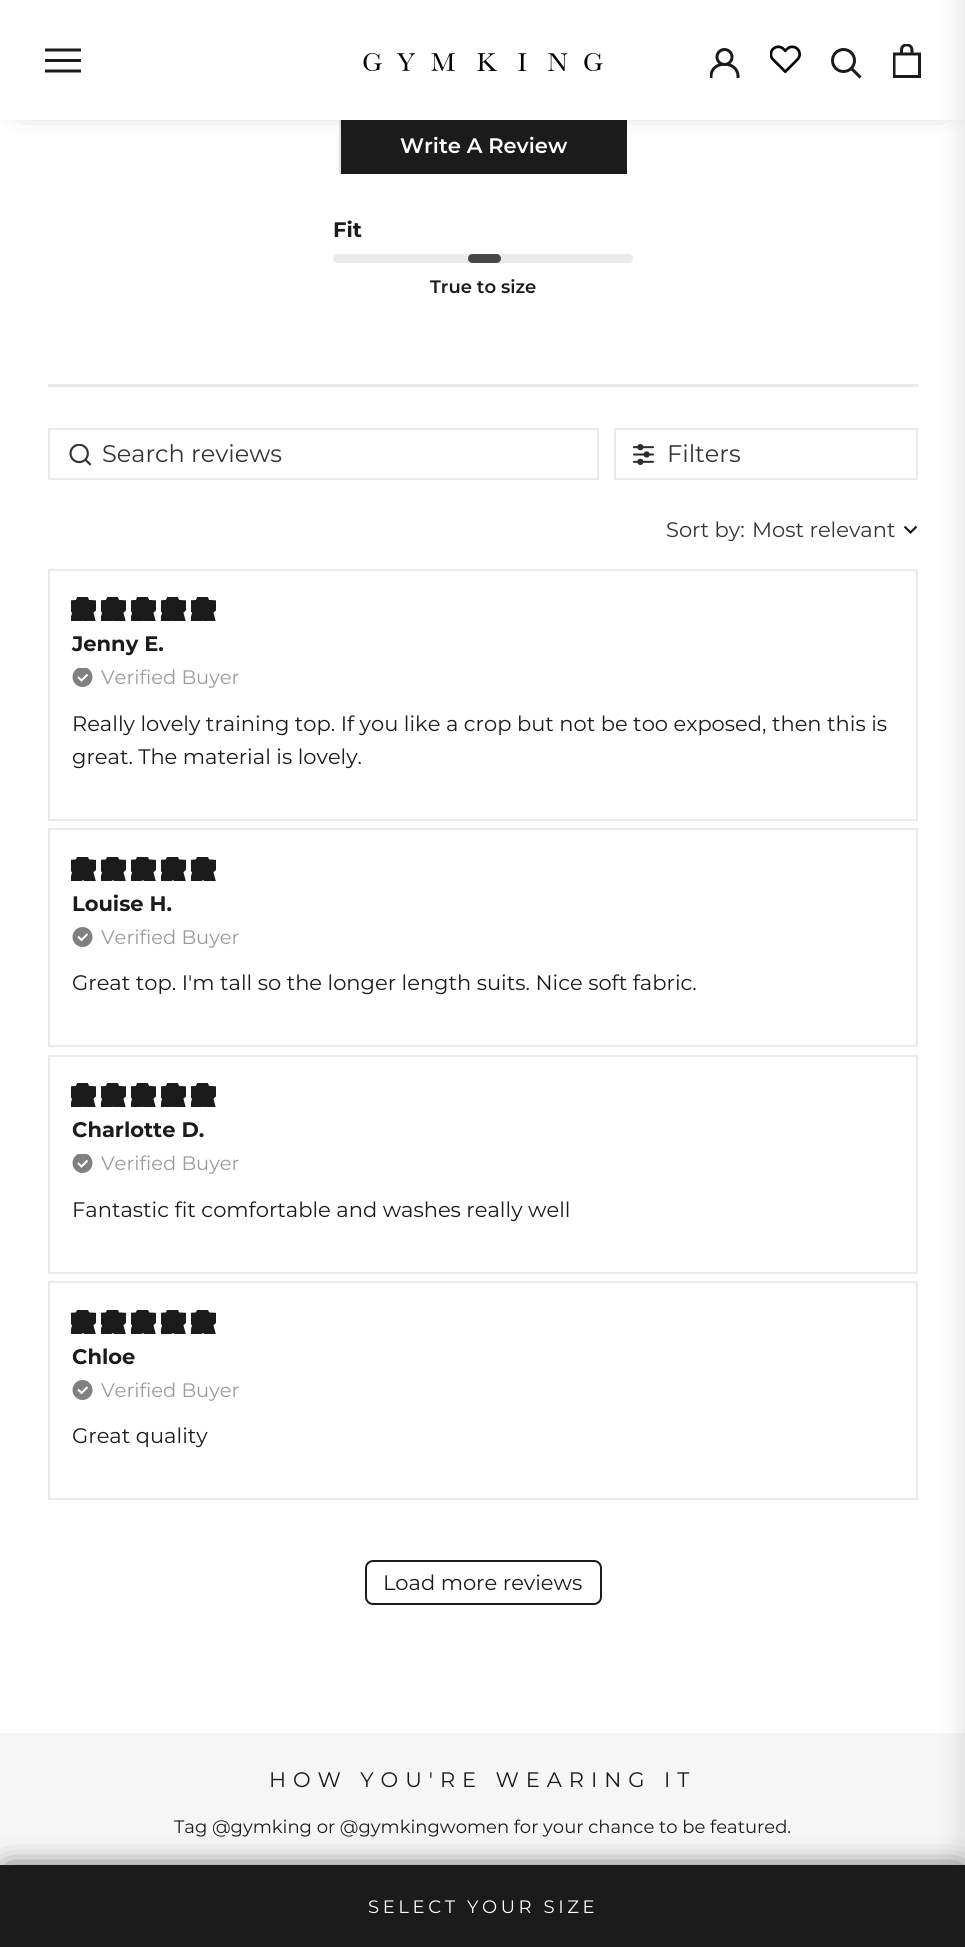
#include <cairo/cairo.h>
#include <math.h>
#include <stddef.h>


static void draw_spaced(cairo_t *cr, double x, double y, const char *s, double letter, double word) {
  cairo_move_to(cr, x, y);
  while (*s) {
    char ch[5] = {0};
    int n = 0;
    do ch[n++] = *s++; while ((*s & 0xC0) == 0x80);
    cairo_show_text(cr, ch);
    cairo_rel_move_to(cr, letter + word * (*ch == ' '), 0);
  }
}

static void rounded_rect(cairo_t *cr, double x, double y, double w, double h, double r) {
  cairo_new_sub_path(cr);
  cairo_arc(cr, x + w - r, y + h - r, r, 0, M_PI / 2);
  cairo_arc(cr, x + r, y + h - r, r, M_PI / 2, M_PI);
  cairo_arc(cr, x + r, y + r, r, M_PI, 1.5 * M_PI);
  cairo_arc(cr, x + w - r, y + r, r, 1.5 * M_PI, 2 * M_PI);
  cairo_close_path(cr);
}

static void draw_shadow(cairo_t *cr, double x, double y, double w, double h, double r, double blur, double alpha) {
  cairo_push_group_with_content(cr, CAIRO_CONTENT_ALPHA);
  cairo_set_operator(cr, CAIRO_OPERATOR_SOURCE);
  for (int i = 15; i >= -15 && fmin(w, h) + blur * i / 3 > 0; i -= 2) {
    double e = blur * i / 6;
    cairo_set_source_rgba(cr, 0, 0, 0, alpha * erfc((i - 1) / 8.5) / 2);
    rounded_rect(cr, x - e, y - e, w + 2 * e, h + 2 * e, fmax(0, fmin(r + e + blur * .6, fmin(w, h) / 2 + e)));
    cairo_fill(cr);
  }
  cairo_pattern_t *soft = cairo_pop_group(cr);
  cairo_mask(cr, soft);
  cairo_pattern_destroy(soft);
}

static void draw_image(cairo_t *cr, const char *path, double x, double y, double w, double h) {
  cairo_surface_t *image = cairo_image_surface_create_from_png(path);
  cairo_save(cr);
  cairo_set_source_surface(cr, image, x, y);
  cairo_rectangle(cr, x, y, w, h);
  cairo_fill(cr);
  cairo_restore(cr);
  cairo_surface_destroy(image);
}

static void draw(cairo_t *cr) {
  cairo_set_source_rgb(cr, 1, 1, 1);
  cairo_paint(cr);
  cairo_set_source_rgb(cr, 27 / 255.0, 27 / 255.0, 27 / 255.0);
  cairo_rectangle(cr, 341, 120, 286, 54);
  cairo_fill(cr);
  cairo_set_source_rgb(cr, 227 / 255.0, 227 / 255.0, 227 / 255.0);
  cairo_rectangle(cr, 339, 119, 2, 55);
  cairo_fill(cr);
  cairo_set_source_rgb(cr, 27 / 255.0, 27 / 255.0, 27 / 255.0);
  draw_shadow(cr, 23, 23, 921, 75, 0, 15, 1);
  cairo_set_source_rgb(cr, 1, 1, 1);
  cairo_rectangle(cr, 0, 0, 965, 120);
  cairo_fill(cr);
  cairo_set_source_rgb(cr, 27 / 255.0, 27 / 255.0, 27 / 255.0);
  cairo_new_path(cr);
  cairo_move_to(cr, 45, 72.5);
  cairo_line_to(cr, 45, 69.5);
  cairo_line_to(cr, 81, 69.5);
  cairo_line_to(cr, 81, 72.5);
  cairo_close_path(cr);
  cairo_move_to(cr, 45, 59);
  cairo_line_to(cr, 81, 59);
  cairo_line_to(cr, 81, 62);
  cairo_line_to(cr, 45, 62);
  cairo_close_path(cr);
  cairo_move_to(cr, 45, 48.5);
  cairo_line_to(cr, 81, 48.5);
  cairo_line_to(cr, 81, 51.5);
  cairo_line_to(cr, 45, 51.5);
  cairo_close_path(cr);
  cairo_fill(cr);
  draw_image(cr, "images/1.png", 363, 53, 240, 18);
  cairo_save(cr);
  cairo_rectangle(cr, 710, 48, 30, 30);
  cairo_clip(cr);
  cairo_new_path(cr);
  cairo_move_to(cr, 711, 76.5);
  cairo_curve_to(cr, 711, 60, 738, 60, 738, 76.5);
  cairo_set_line_width(cr, 3);
  cairo_set_line_cap(cr, CAIRO_LINE_CAP_SQUARE);
  cairo_stroke(cr);
  cairo_restore(cr);
  cairo_set_source_rgb(cr, 1, 1, 1);
  cairo_arc(cr, 724.5, 57, 7.5, 0, 2 * M_PI);
  cairo_fill_preserve(cr);
  cairo_set_source_rgb(cr, 27 / 255.0, 27 / 255.0, 27 / 255.0);
  cairo_set_line_width(cr, 3);
  cairo_stroke(cr);
  draw_image(cr, "images/2.png", 770, 45, 31, 28);
  cairo_new_path(cr);
  cairo_move_to(cr, 859.5, 76.5);
  cairo_line_to(cr, 851, 68);
  cairo_set_line_cap(cr, CAIRO_LINE_CAP_SQUARE);
  cairo_stroke(cr);
  cairo_set_source_rgb(cr, 1, 1, 1);
  cairo_arc(cr, 843.5, 60.5, 11, 0, 2 * M_PI);
  cairo_fill_preserve(cr);
  cairo_set_source_rgb(cr, 27 / 255.0, 27 / 255.0, 27 / 255.0);
  cairo_set_line_cap(cr, CAIRO_LINE_CAP_BUTT);
  cairo_stroke(cr);
  draw_image(cr, "images/3.png", 893, 44, 28, 34);
  cairo_set_source_rgb(cr, 234 / 255.0, 234 / 255.0, 234 / 255.0);
  rounded_rect(cr, 333, 254, 300, 9, 4.5);
  cairo_fill(cr);
  cairo_set_source_rgb(cr, 70 / 255.0, 70 / 255.0, 70 / 255.0);
  rounded_rect(cr, 468, 254, 33, 9, 4.5);
  cairo_fill(cr);
  cairo_set_source_rgb(cr, 234 / 255.0, 234 / 255.0, 234 / 255.0);
  cairo_rectangle(cr, 48, 384, 870, 3);
  cairo_fill(cr);
  cairo_rectangle(cr, 49, 429, 549, 50);
  cairo_set_line_width(cr, 2);
  cairo_stroke(cr);
  draw_image(cr, "images/4.png", 69, 444, 23, 22);
  cairo_rectangle(cr, 615, 429, 302, 50);
  cairo_stroke(cr);
  draw_image(cr, "images/5.png", 633, 444, 21, 21);
  cairo_new_path(cr);
  cairo_move_to(cr, 904.5, 526.5);
  cairo_line_to(cr, 910.5, 532.5);
  cairo_line_to(cr, 916.5, 526.5);
  cairo_set_source_rgb(cr, 27 / 255.0, 27 / 255.0, 27 / 255.0);
  cairo_set_line_width(cr, 2.2);
  cairo_stroke(cr);
  cairo_rectangle(cr, 49, 570, 868, 250);
  cairo_set_source_rgb(cr, 234 / 255.0, 234 / 255.0, 234 / 255.0);
  cairo_set_line_width(cr, 2);
  cairo_stroke(cr);
  cairo_save(cr);
  cairo_rectangle(cr, 72, 668, 21, 19);
  cairo_clip(cr);
  cairo_set_source_rgb(cr, 128 / 255.0, 128 / 255.0, 128 / 255.0);
  cairo_arc(cr, 82.5, 677, 10, 0, 2 * M_PI);
  cairo_fill(cr);
  cairo_restore(cr);
  cairo_new_path(cr);
  cairo_move_to(cr, 78, 677);
  cairo_line_to(cr, 81.5, 680.5);
  cairo_line_to(cr, 87.5, 674.5);
  cairo_set_source_rgb(cr, 1, 1, 1);
  cairo_stroke(cr);
  cairo_save(cr);
  cairo_rectangle(cr, 71, 597, 25, 24);
  cairo_clip(cr);
  cairo_new_path(cr);
  cairo_move_to(cr, 83, 614.5);
  cairo_line_to(cr, 76, 618.5);
  cairo_line_to(cr, 78, 611);
  cairo_line_to(cr, 72, 605.5);
  cairo_line_to(cr, 79.5, 605);
  cairo_line_to(cr, 82.5, 598);
  cairo_line_to(cr, 85.5, 605);
  cairo_line_to(cr, 93.5, 605.5);
  cairo_line_to(cr, 87.5, 611);
  cairo_line_to(cr, 89.5, 618.5);
  cairo_close_path(cr);
  cairo_set_source_rgb(cr, 27 / 255.0, 27 / 255.0, 27 / 255.0);
  cairo_set_line_width(cr, 10.6);
  cairo_stroke(cr);
  cairo_restore(cr);
  cairo_save(cr);
  cairo_rectangle(cr, 101, 597, 25, 24);
  cairo_clip(cr);
  cairo_new_path(cr);
  cairo_move_to(cr, 113, 614.5);
  cairo_line_to(cr, 106, 618.5);
  cairo_line_to(cr, 108, 611);
  cairo_line_to(cr, 102, 605.5);
  cairo_line_to(cr, 109.5, 605);
  cairo_line_to(cr, 112.5, 598);
  cairo_line_to(cr, 115.5, 605);
  cairo_line_to(cr, 123.5, 605.5);
  cairo_line_to(cr, 117.5, 611);
  cairo_line_to(cr, 119.5, 618.5);
  cairo_close_path(cr);
  cairo_set_source_rgb(cr, 27 / 255.0, 27 / 255.0, 27 / 255.0);
  cairo_set_line_width(cr, 10.6);
  cairo_stroke(cr);
  cairo_restore(cr);
  cairo_save(cr);
  cairo_rectangle(cr, 131, 597, 25, 24);
  cairo_clip(cr);
  cairo_new_path(cr);
  cairo_move_to(cr, 143, 614.5);
  cairo_line_to(cr, 136, 618.5);
  cairo_line_to(cr, 138, 611);
  cairo_line_to(cr, 132, 605.5);
  cairo_line_to(cr, 139.5, 605);
  cairo_line_to(cr, 142.5, 598);
  cairo_line_to(cr, 145.5, 605);
  cairo_line_to(cr, 153.5, 605.5);
  cairo_line_to(cr, 147.5, 611);
  cairo_line_to(cr, 149.5, 618.5);
  cairo_close_path(cr);
  cairo_set_source_rgb(cr, 27 / 255.0, 27 / 255.0, 27 / 255.0);
  cairo_set_line_width(cr, 10.6);
  cairo_stroke(cr);
  cairo_restore(cr);
  cairo_save(cr);
  cairo_rectangle(cr, 161, 597, 25, 24);
  cairo_clip(cr);
  cairo_new_path(cr);
  cairo_move_to(cr, 173, 614.5);
  cairo_line_to(cr, 166, 618.5);
  cairo_line_to(cr, 168, 611);
  cairo_line_to(cr, 162, 605.5);
  cairo_line_to(cr, 169.5, 605);
  cairo_line_to(cr, 172.5, 598);
  cairo_line_to(cr, 175.5, 605);
  cairo_line_to(cr, 183.5, 605.5);
  cairo_line_to(cr, 177.5, 611);
  cairo_line_to(cr, 179.5, 618.5);
  cairo_close_path(cr);
  cairo_set_source_rgb(cr, 27 / 255.0, 27 / 255.0, 27 / 255.0);
  cairo_set_line_width(cr, 10.6);
  cairo_stroke(cr);
  cairo_restore(cr);
  cairo_save(cr);
  cairo_rectangle(cr, 191, 597, 25, 24);
  cairo_clip(cr);
  cairo_new_path(cr);
  cairo_move_to(cr, 203, 614.5);
  cairo_line_to(cr, 196, 618.5);
  cairo_line_to(cr, 198, 611);
  cairo_line_to(cr, 192, 605.5);
  cairo_line_to(cr, 199.5, 605);
  cairo_line_to(cr, 202.5, 598);
  cairo_line_to(cr, 205.5, 605);
  cairo_line_to(cr, 213.5, 605.5);
  cairo_line_to(cr, 207.5, 611);
  cairo_line_to(cr, 209.5, 618.5);
  cairo_close_path(cr);
  cairo_set_source_rgb(cr, 27 / 255.0, 27 / 255.0, 27 / 255.0);
  cairo_set_line_width(cr, 10.6);
  cairo_stroke(cr);
  cairo_restore(cr);
  cairo_rectangle(cr, 49, 829, 868, 217);
  cairo_set_source_rgb(cr, 234 / 255.0, 234 / 255.0, 234 / 255.0);
  cairo_stroke(cr);
  cairo_set_source_rgb(cr, 128 / 255.0, 128 / 255.0, 128 / 255.0);
  cairo_arc(cr, 82.5, 937, 10, 0, 2 * M_PI);
  cairo_fill(cr);
  cairo_new_path(cr);
  cairo_move_to(cr, 78, 936.5);
  cairo_line_to(cr, 81.5, 940);
  cairo_line_to(cr, 87.5, 934);
  cairo_set_source_rgb(cr, 1, 1, 1);
  cairo_stroke(cr);
  cairo_save(cr);
  cairo_rectangle(cr, 71, 857, 25, 24);
  cairo_clip(cr);
  cairo_new_path(cr);
  cairo_move_to(cr, 83, 874);
  cairo_line_to(cr, 76, 878);
  cairo_line_to(cr, 78, 870.5);
  cairo_line_to(cr, 72, 865);
  cairo_line_to(cr, 79.5, 864.5);
  cairo_line_to(cr, 82.5, 857.5);
  cairo_line_to(cr, 85.5, 864.5);
  cairo_line_to(cr, 93.5, 865);
  cairo_line_to(cr, 87.5, 870.5);
  cairo_line_to(cr, 89.5, 878);
  cairo_close_path(cr);
  cairo_set_source_rgb(cr, 27 / 255.0, 27 / 255.0, 27 / 255.0);
  cairo_set_line_width(cr, 10.6);
  cairo_stroke(cr);
  cairo_restore(cr);
  cairo_save(cr);
  cairo_rectangle(cr, 101, 857, 25, 24);
  cairo_clip(cr);
  cairo_new_path(cr);
  cairo_move_to(cr, 113, 874);
  cairo_line_to(cr, 106, 878);
  cairo_line_to(cr, 108, 870.5);
  cairo_line_to(cr, 102, 865);
  cairo_line_to(cr, 109.5, 864.5);
  cairo_line_to(cr, 112.5, 857.5);
  cairo_line_to(cr, 115.5, 864.5);
  cairo_line_to(cr, 123.5, 865);
  cairo_line_to(cr, 117.5, 870.5);
  cairo_line_to(cr, 119.5, 878);
  cairo_close_path(cr);
  cairo_set_source_rgb(cr, 27 / 255.0, 27 / 255.0, 27 / 255.0);
  cairo_set_line_width(cr, 10.6);
  cairo_stroke(cr);
  cairo_restore(cr);
  cairo_save(cr);
  cairo_rectangle(cr, 131, 857, 25, 24);
  cairo_clip(cr);
  cairo_new_path(cr);
  cairo_move_to(cr, 143, 874);
  cairo_line_to(cr, 136, 878);
  cairo_line_to(cr, 138, 870.5);
  cairo_line_to(cr, 132, 865);
  cairo_line_to(cr, 139.5, 864.5);
  cairo_line_to(cr, 142.5, 857.5);
  cairo_line_to(cr, 145.5, 864.5);
  cairo_line_to(cr, 153.5, 865);
  cairo_line_to(cr, 147.5, 870.5);
  cairo_line_to(cr, 149.5, 878);
  cairo_close_path(cr);
  cairo_set_source_rgb(cr, 27 / 255.0, 27 / 255.0, 27 / 255.0);
  cairo_set_line_width(cr, 10.6);
  cairo_stroke(cr);
  cairo_restore(cr);
  cairo_save(cr);
  cairo_rectangle(cr, 161, 857, 25, 24);
  cairo_clip(cr);
  cairo_new_path(cr);
  cairo_move_to(cr, 173, 874);
  cairo_line_to(cr, 166, 878);
  cairo_line_to(cr, 168, 870.5);
  cairo_line_to(cr, 162, 865);
  cairo_line_to(cr, 169.5, 864.5);
  cairo_line_to(cr, 172.5, 857.5);
  cairo_line_to(cr, 175.5, 864.5);
  cairo_line_to(cr, 183.5, 865);
  cairo_line_to(cr, 177.5, 870.5);
  cairo_line_to(cr, 179.5, 878);
  cairo_close_path(cr);
  cairo_set_source_rgb(cr, 27 / 255.0, 27 / 255.0, 27 / 255.0);
  cairo_set_line_width(cr, 10.6);
  cairo_stroke(cr);
  cairo_restore(cr);
  cairo_save(cr);
  cairo_rectangle(cr, 191, 857, 25, 24);
  cairo_clip(cr);
  cairo_new_path(cr);
  cairo_move_to(cr, 203, 874);
  cairo_line_to(cr, 196, 878);
  cairo_line_to(cr, 198, 870.5);
  cairo_line_to(cr, 192, 865);
  cairo_line_to(cr, 199.5, 864.5);
  cairo_line_to(cr, 202.5, 857.5);
  cairo_line_to(cr, 205.5, 864.5);
  cairo_line_to(cr, 213.5, 865);
  cairo_line_to(cr, 207.5, 870.5);
  cairo_line_to(cr, 209.5, 878);
  cairo_close_path(cr);
  cairo_set_source_rgb(cr, 27 / 255.0, 27 / 255.0, 27 / 255.0);
  cairo_set_line_width(cr, 10.6);
  cairo_stroke(cr);
  cairo_restore(cr);
  cairo_rectangle(cr, 49, 1056, 868, 217);
  cairo_set_source_rgb(cr, 234 / 255.0, 234 / 255.0, 234 / 255.0);
  cairo_stroke(cr);
  cairo_save(cr);
  cairo_rectangle(cr, 72, 1154, 21, 19);
  cairo_clip(cr);
  cairo_set_source_rgb(cr, 128 / 255.0, 128 / 255.0, 128 / 255.0);
  cairo_arc(cr, 82.5, 1163, 10, 0, 2 * M_PI);
  cairo_fill(cr);
  cairo_restore(cr);
  cairo_new_path(cr);
  cairo_move_to(cr, 78, 1163);
  cairo_line_to(cr, 81.5, 1166.5);
  cairo_line_to(cr, 87.5, 1160.5);
  cairo_set_source_rgb(cr, 1, 1, 1);
  cairo_stroke(cr);
  cairo_save(cr);
  cairo_rectangle(cr, 71, 1083, 25, 24);
  cairo_clip(cr);
  cairo_new_path(cr);
  cairo_move_to(cr, 83, 1100.5);
  cairo_line_to(cr, 76, 1104.5);
  cairo_line_to(cr, 78, 1097);
  cairo_line_to(cr, 72, 1091.5);
  cairo_line_to(cr, 79.5, 1091);
  cairo_line_to(cr, 82.5, 1084);
  cairo_line_to(cr, 85.5, 1091);
  cairo_line_to(cr, 93.5, 1091.5);
  cairo_line_to(cr, 87.5, 1097);
  cairo_line_to(cr, 89.5, 1104.5);
  cairo_close_path(cr);
  cairo_set_source_rgb(cr, 27 / 255.0, 27 / 255.0, 27 / 255.0);
  cairo_set_line_width(cr, 10.6);
  cairo_stroke(cr);
  cairo_restore(cr);
  cairo_save(cr);
  cairo_rectangle(cr, 101, 1083, 25, 24);
  cairo_clip(cr);
  cairo_new_path(cr);
  cairo_move_to(cr, 113, 1100.5);
  cairo_line_to(cr, 106, 1104.5);
  cairo_line_to(cr, 108, 1097);
  cairo_line_to(cr, 102, 1091.5);
  cairo_line_to(cr, 109.5, 1091);
  cairo_line_to(cr, 112.5, 1084);
  cairo_line_to(cr, 115.5, 1091);
  cairo_line_to(cr, 123.5, 1091.5);
  cairo_line_to(cr, 117.5, 1097);
  cairo_line_to(cr, 119.5, 1104.5);
  cairo_close_path(cr);
  cairo_set_source_rgb(cr, 27 / 255.0, 27 / 255.0, 27 / 255.0);
  cairo_set_line_width(cr, 10.6);
  cairo_stroke(cr);
  cairo_restore(cr);
  cairo_save(cr);
  cairo_rectangle(cr, 131, 1083, 25, 24);
  cairo_clip(cr);
  cairo_new_path(cr);
  cairo_move_to(cr, 143, 1100.5);
  cairo_line_to(cr, 136, 1104.5);
  cairo_line_to(cr, 138, 1097);
  cairo_line_to(cr, 132, 1091.5);
  cairo_line_to(cr, 139.5, 1091);
  cairo_line_to(cr, 142.5, 1084);
  cairo_line_to(cr, 145.5, 1091);
  cairo_line_to(cr, 153.5, 1091.5);
  cairo_line_to(cr, 147.5, 1097);
  cairo_line_to(cr, 149.5, 1104.5);
  cairo_close_path(cr);
  cairo_set_source_rgb(cr, 27 / 255.0, 27 / 255.0, 27 / 255.0);
  cairo_set_line_width(cr, 10.6);
  cairo_stroke(cr);
  cairo_restore(cr);
  cairo_save(cr);
  cairo_rectangle(cr, 161, 1083, 25, 24);
  cairo_clip(cr);
  cairo_new_path(cr);
  cairo_move_to(cr, 173, 1100.5);
  cairo_line_to(cr, 166, 1104.5);
  cairo_line_to(cr, 168, 1097);
  cairo_line_to(cr, 162, 1091.5);
  cairo_line_to(cr, 169.5, 1091);
  cairo_line_to(cr, 172.5, 1084);
  cairo_line_to(cr, 175.5, 1091);
  cairo_line_to(cr, 183.5, 1091.5);
  cairo_line_to(cr, 177.5, 1097);
  cairo_line_to(cr, 179.5, 1104.5);
  cairo_close_path(cr);
  cairo_set_source_rgb(cr, 27 / 255.0, 27 / 255.0, 27 / 255.0);
  cairo_set_line_width(cr, 10.6);
  cairo_stroke(cr);
  cairo_restore(cr);
  cairo_save(cr);
  cairo_rectangle(cr, 191, 1083, 25, 24);
  cairo_clip(cr);
  cairo_new_path(cr);
  cairo_move_to(cr, 203, 1100.5);
  cairo_line_to(cr, 196, 1104.5);
  cairo_line_to(cr, 198, 1097);
  cairo_line_to(cr, 192, 1091.5);
  cairo_line_to(cr, 199.5, 1091);
  cairo_line_to(cr, 202.5, 1084);
  cairo_line_to(cr, 205.5, 1091);
  cairo_line_to(cr, 213.5, 1091.5);
  cairo_line_to(cr, 207.5, 1097);
  cairo_line_to(cr, 209.5, 1104.5);
  cairo_close_path(cr);
  cairo_set_source_rgb(cr, 27 / 255.0, 27 / 255.0, 27 / 255.0);
  cairo_set_line_width(cr, 10.6);
  cairo_stroke(cr);
  cairo_restore(cr);
  cairo_rectangle(cr, 49, 1282, 868, 217);
  cairo_set_source_rgb(cr, 234 / 255.0, 234 / 255.0, 234 / 255.0);
  cairo_stroke(cr);
  cairo_set_source_rgb(cr, 128 / 255.0, 128 / 255.0, 128 / 255.0);
  cairo_arc(cr, 82.5, 1390, 10, 0, 2 * M_PI);
  cairo_fill(cr);
  cairo_new_path(cr);
  cairo_move_to(cr, 78, 1389.5);
  cairo_line_to(cr, 81.5, 1393);
  cairo_line_to(cr, 87.5, 1387);
  cairo_set_source_rgb(cr, 1, 1, 1);
  cairo_stroke(cr);
  cairo_save(cr);
  cairo_rectangle(cr, 71, 1310, 25, 24);
  cairo_clip(cr);
  cairo_new_path(cr);
  cairo_move_to(cr, 83, 1327);
  cairo_line_to(cr, 76, 1331);
  cairo_line_to(cr, 78, 1323.5);
  cairo_line_to(cr, 72, 1318);
  cairo_line_to(cr, 79.5, 1317.5);
  cairo_line_to(cr, 82.5, 1310.5);
  cairo_line_to(cr, 85.5, 1317.5);
  cairo_line_to(cr, 93.5, 1318);
  cairo_line_to(cr, 87.5, 1323.5);
  cairo_line_to(cr, 89.5, 1331);
  cairo_close_path(cr);
  cairo_set_source_rgb(cr, 27 / 255.0, 27 / 255.0, 27 / 255.0);
  cairo_set_line_width(cr, 10.6);
  cairo_stroke(cr);
  cairo_restore(cr);
  cairo_save(cr);
  cairo_rectangle(cr, 101, 1310, 25, 24);
  cairo_clip(cr);
  cairo_new_path(cr);
  cairo_move_to(cr, 113, 1327);
  cairo_line_to(cr, 106, 1331);
  cairo_line_to(cr, 108, 1323.5);
  cairo_line_to(cr, 102, 1318);
  cairo_line_to(cr, 109.5, 1317.5);
  cairo_line_to(cr, 112.5, 1310.5);
  cairo_line_to(cr, 115.5, 1317.5);
  cairo_line_to(cr, 123.5, 1318);
  cairo_line_to(cr, 117.5, 1323.5);
  cairo_line_to(cr, 119.5, 1331);
  cairo_close_path(cr);
  cairo_set_source_rgb(cr, 27 / 255.0, 27 / 255.0, 27 / 255.0);
  cairo_set_line_width(cr, 10.6);
  cairo_stroke(cr);
  cairo_restore(cr);
  cairo_save(cr);
  cairo_rectangle(cr, 131, 1310, 25, 24);
  cairo_clip(cr);
  cairo_new_path(cr);
  cairo_move_to(cr, 143, 1327);
  cairo_line_to(cr, 136, 1331);
  cairo_line_to(cr, 138, 1323.5);
  cairo_line_to(cr, 132, 1318);
  cairo_line_to(cr, 139.5, 1317.5);
  cairo_line_to(cr, 142.5, 1310.5);
  cairo_line_to(cr, 145.5, 1317.5);
  cairo_line_to(cr, 153.5, 1318);
  cairo_line_to(cr, 147.5, 1323.5);
  cairo_line_to(cr, 149.5, 1331);
  cairo_close_path(cr);
  cairo_set_source_rgb(cr, 27 / 255.0, 27 / 255.0, 27 / 255.0);
  cairo_set_line_width(cr, 10.6);
  cairo_stroke(cr);
  cairo_restore(cr);
  cairo_save(cr);
  cairo_rectangle(cr, 161, 1310, 25, 24);
  cairo_clip(cr);
  cairo_new_path(cr);
  cairo_move_to(cr, 173, 1327);
  cairo_line_to(cr, 166, 1331);
  cairo_line_to(cr, 168, 1323.5);
  cairo_line_to(cr, 162, 1318);
  cairo_line_to(cr, 169.5, 1317.5);
  cairo_line_to(cr, 172.5, 1310.5);
  cairo_line_to(cr, 175.5, 1317.5);
  cairo_line_to(cr, 183.5, 1318);
  cairo_line_to(cr, 177.5, 1323.5);
  cairo_line_to(cr, 179.5, 1331);
  cairo_close_path(cr);
  cairo_set_source_rgb(cr, 27 / 255.0, 27 / 255.0, 27 / 255.0);
  cairo_set_line_width(cr, 10.6);
  cairo_stroke(cr);
  cairo_restore(cr);
  cairo_save(cr);
  cairo_rectangle(cr, 191, 1310, 25, 24);
  cairo_clip(cr);
  cairo_new_path(cr);
  cairo_move_to(cr, 203, 1327);
  cairo_line_to(cr, 196, 1331);
  cairo_line_to(cr, 198, 1323.5);
  cairo_line_to(cr, 192, 1318);
  cairo_line_to(cr, 199.5, 1317.5);
  cairo_line_to(cr, 202.5, 1310.5);
  cairo_line_to(cr, 205.5, 1317.5);
  cairo_line_to(cr, 213.5, 1318);
  cairo_line_to(cr, 207.5, 1323.5);
  cairo_line_to(cr, 209.5, 1331);
  cairo_close_path(cr);
  cairo_set_source_rgb(cr, 27 / 255.0, 27 / 255.0, 27 / 255.0);
  cairo_set_line_width(cr, 10.6);
  cairo_stroke(cr);
  cairo_restore(cr);
  rounded_rect(cr, 366, 1561, 235, 43, 7);
  cairo_set_source_rgb(cr, 27 / 255.0, 27 / 255.0, 27 / 255.0);
  cairo_stroke(cr);
  cairo_set_source_rgb(cr, 246 / 255.0, 246 / 255.0, 246 / 255.0);
  cairo_rectangle(cr, 0, 1733, 965, 132);
  cairo_fill(cr);
  cairo_set_source_rgb(cr, 27 / 255.0, 27 / 255.0, 27 / 255.0);
  draw_shadow(cr, 8, 1872, 951, 68, 0, 15, 1);
  cairo_set_source_rgb(cr, 0, 0, 0);
  draw_shadow(cr, 959, -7, 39, 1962, 0, 11, 0.1);
  cairo_set_source_rgb(cr, 27 / 255.0, 27 / 255.0, 27 / 255.0);
  cairo_rectangle(cr, 0, 1865, 965, 82);
  cairo_fill(cr);
  cairo_select_font_face(cr, "Montserrat Thin", CAIRO_FONT_SLANT_NORMAL, CAIRO_FONT_WEIGHT_NORMAL);
  cairo_set_font_size(cr, 21);
  cairo_set_source_rgb(cr, 1, 1, 1);
  cairo_move_to(cr, 400, 153);
  cairo_show_text(cr, "Write A Review");
  cairo_select_font_face(cr, "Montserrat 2 Thin", CAIRO_FONT_SLANT_NORMAL, CAIRO_FONT_WEIGHT_NORMAL);
  cairo_set_source_rgb(cr, 27 / 255.0, 27 / 255.0, 27 / 255.0);
  cairo_move_to(cr, 333, 237);
  cairo_show_text(cr, "Fit");
  cairo_select_font_face(cr, "Montserrat Thin", CAIRO_FONT_SLANT_NORMAL, CAIRO_FONT_WEIGHT_NORMAL);
  cairo_set_font_size(cr, 18);
  cairo_move_to(cr, 430, 293);
  cairo_show_text(cr, "True to size");
  cairo_select_font_face(cr, "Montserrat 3 Thin", CAIRO_FONT_SLANT_NORMAL, CAIRO_FONT_WEIGHT_NORMAL);
  cairo_set_font_size(cr, 24);
  cairo_set_source_rgb(cr, 55 / 255.0, 51 / 255.0, 48 / 255.0);
  cairo_move_to(cr, 102, 462);
  cairo_show_text(cr, "Search reviews");
  cairo_move_to(cr, 667, 462);
  cairo_show_text(cr, "Filters");
  cairo_set_font_size(cr, 21);
  cairo_move_to(cr, 666, 537);
  cairo_show_text(cr, "Sort by:");
  cairo_move_to(cr, 752, 537);
  cairo_show_text(cr, "Most relevant");
  cairo_select_font_face(cr, "Montserrat 2 Thin", CAIRO_FONT_SLANT_NORMAL, CAIRO_FONT_WEIGHT_NORMAL);
  cairo_set_source_rgb(cr, 27 / 255.0, 27 / 255.0, 27 / 255.0);
  cairo_move_to(cr, 72, 651);
  cairo_show_text(cr, "Jenny E.");
  cairo_select_font_face(cr, "Montserrat 3 Thin", CAIRO_FONT_SLANT_NORMAL, CAIRO_FONT_WEIGHT_NORMAL);
  cairo_set_font_size(cr, 19.5);
  cairo_set_source_rgb(cr, 155 / 255.0, 155 / 255.0, 155 / 255.0);
  cairo_move_to(cr, 101, 684);
  cairo_show_text(cr, "Verified Buyer");
  cairo_set_font_size(cr, 21);
  cairo_set_source_rgb(cr, 27 / 255.0, 27 / 255.0, 27 / 255.0);
  cairo_move_to(cr, 72, 731);
  cairo_show_text(cr, "Really lovely training top. If you like a crop but not be too exposed, then this is");
  cairo_move_to(cr, 72, 764);
  cairo_show_text(cr, "great. The material is lovely.");
  cairo_select_font_face(cr, "Montserrat 2 Thin", CAIRO_FONT_SLANT_NORMAL, CAIRO_FONT_WEIGHT_NORMAL);
  cairo_move_to(cr, 72, 911);
  cairo_show_text(cr, "Louise H.");
  cairo_select_font_face(cr, "Montserrat 3 Thin", CAIRO_FONT_SLANT_NORMAL, CAIRO_FONT_WEIGHT_NORMAL);
  cairo_set_font_size(cr, 19.5);
  cairo_set_source_rgb(cr, 155 / 255.0, 155 / 255.0, 155 / 255.0);
  cairo_move_to(cr, 101, 944);
  cairo_show_text(cr, "Verified Buyer");
  cairo_set_font_size(cr, 21);
  cairo_set_source_rgb(cr, 27 / 255.0, 27 / 255.0, 27 / 255.0);
  cairo_move_to(cr, 72, 990);
  cairo_show_text(cr, "Great top. I'm tall so the longer length suits. Nice soft fabric.");
  cairo_select_font_face(cr, "Montserrat 2 Thin", CAIRO_FONT_SLANT_NORMAL, CAIRO_FONT_WEIGHT_NORMAL);
  cairo_move_to(cr, 72, 1137);
  cairo_show_text(cr, "Charlotte D.");
  cairo_select_font_face(cr, "Montserrat 3 Thin", CAIRO_FONT_SLANT_NORMAL, CAIRO_FONT_WEIGHT_NORMAL);
  cairo_set_font_size(cr, 19.5);
  cairo_set_source_rgb(cr, 155 / 255.0, 155 / 255.0, 155 / 255.0);
  cairo_move_to(cr, 101, 1170);
  cairo_show_text(cr, "Verified Buyer");
  cairo_set_font_size(cr, 21);
  cairo_set_source_rgb(cr, 27 / 255.0, 27 / 255.0, 27 / 255.0);
  cairo_move_to(cr, 72, 1217);
  cairo_show_text(cr, "Fantastic fit comfortable and washes really well");
  cairo_select_font_face(cr, "Montserrat 2 Thin", CAIRO_FONT_SLANT_NORMAL, CAIRO_FONT_WEIGHT_NORMAL);
  cairo_move_to(cr, 72, 1364);
  cairo_show_text(cr, "Chloe");
  cairo_select_font_face(cr, "Montserrat 3 Thin", CAIRO_FONT_SLANT_NORMAL, CAIRO_FONT_WEIGHT_NORMAL);
  cairo_set_font_size(cr, 19.5);
  cairo_set_source_rgb(cr, 155 / 255.0, 155 / 255.0, 155 / 255.0);
  cairo_move_to(cr, 101, 1397);
  cairo_show_text(cr, "Verified Buyer");
  cairo_set_font_size(cr, 21);
  cairo_set_source_rgb(cr, 27 / 255.0, 27 / 255.0, 27 / 255.0);
  cairo_move_to(cr, 72, 1443);
  cairo_show_text(cr, "Great quality");
  cairo_move_to(cr, 383, 1590);
  cairo_show_text(cr, "Load more reviews");
  draw_spaced(cr, 269, 1787, "HOW YOU'RE WEARING IT", 6.95, 0);
  cairo_set_font_size(cr, 18);
  cairo_move_to(cr, 174, 1833);
  cairo_show_text(cr, "Tag @gymking or @gymkingwomen for your chance to be featured.");
  cairo_set_source_rgb(cr, 1, 1, 1);
  draw_spaced(cr, 368, 1913, "SELECT YOUR SIZE", 3.6, 0);
}

int main(void) {
  cairo_surface_t *surface = cairo_image_surface_create(CAIRO_FORMAT_RGB24, 965, 1947);
  cairo_t *cr = cairo_create(surface);
  cairo_font_options_t *options = cairo_font_options_create();
  cairo_font_options_set_hint_metrics(options, CAIRO_HINT_METRICS_OFF);
  cairo_font_options_set_hint_style(options, CAIRO_HINT_STYLE_NONE);
  cairo_set_font_options(cr, options);
  cairo_set_miter_limit(cr, 4);
  draw(cr);
  cairo_surface_write_to_png(surface, "out.png");
  cairo_font_options_destroy(options);
  cairo_destroy(cr);
  cairo_surface_destroy(surface);
  return 0;
}
